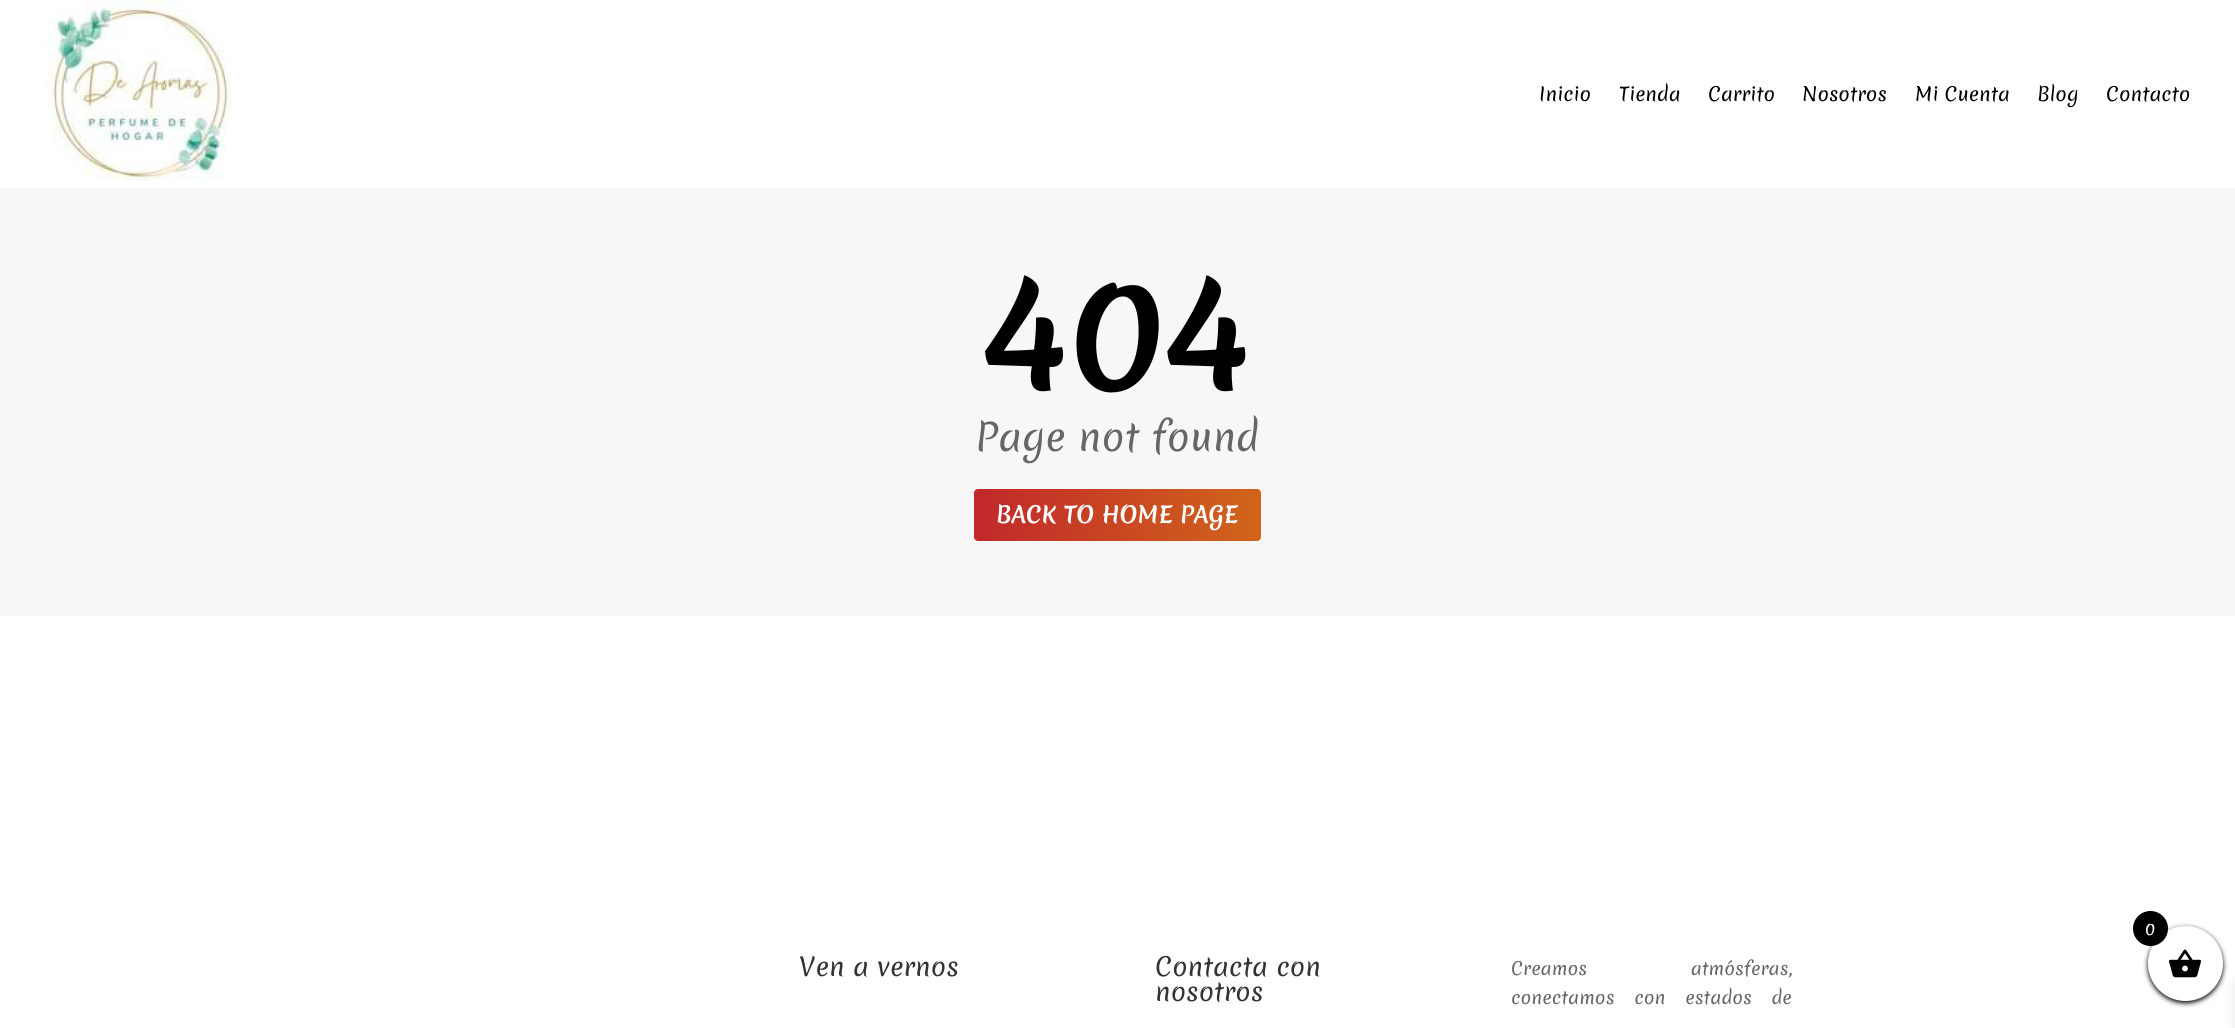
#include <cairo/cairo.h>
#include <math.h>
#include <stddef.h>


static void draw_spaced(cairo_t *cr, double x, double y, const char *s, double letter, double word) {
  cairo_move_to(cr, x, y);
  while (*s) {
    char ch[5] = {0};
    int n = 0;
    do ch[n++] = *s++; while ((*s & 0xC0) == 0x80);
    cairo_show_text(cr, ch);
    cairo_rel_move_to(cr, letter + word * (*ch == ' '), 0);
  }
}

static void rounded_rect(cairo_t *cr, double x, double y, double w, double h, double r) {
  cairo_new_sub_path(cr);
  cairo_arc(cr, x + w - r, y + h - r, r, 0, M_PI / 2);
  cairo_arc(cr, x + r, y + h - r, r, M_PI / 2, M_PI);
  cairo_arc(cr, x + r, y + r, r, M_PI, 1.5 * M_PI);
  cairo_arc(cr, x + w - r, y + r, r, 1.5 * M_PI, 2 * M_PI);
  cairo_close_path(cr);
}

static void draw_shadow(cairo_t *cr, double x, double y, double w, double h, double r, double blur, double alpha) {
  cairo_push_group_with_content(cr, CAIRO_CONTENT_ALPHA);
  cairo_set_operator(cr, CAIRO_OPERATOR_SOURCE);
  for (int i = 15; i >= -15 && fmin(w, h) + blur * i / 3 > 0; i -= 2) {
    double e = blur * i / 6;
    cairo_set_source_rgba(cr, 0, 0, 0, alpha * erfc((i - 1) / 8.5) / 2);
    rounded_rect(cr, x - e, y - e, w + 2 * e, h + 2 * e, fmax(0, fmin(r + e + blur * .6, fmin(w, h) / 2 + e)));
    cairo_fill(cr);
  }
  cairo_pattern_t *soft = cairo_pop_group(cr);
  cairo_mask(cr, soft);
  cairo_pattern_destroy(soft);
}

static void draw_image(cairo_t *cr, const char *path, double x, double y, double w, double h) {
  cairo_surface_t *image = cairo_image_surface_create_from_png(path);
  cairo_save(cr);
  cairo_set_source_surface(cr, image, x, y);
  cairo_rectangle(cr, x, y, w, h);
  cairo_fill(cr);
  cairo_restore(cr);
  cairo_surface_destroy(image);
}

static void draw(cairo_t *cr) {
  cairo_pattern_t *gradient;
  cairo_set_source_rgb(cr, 1, 1, 1);
  cairo_paint(cr);
  draw_image(cr, "images/1.png", 45, 0, 187, 181);
  cairo_set_source_rgb(cr, 247 / 255.0, 247 / 255.0, 247 / 255.0);
  cairo_rectangle(cr, 0, 188, 2235, 428);
  cairo_fill(cr);
  gradient = cairo_pattern_create_linear(974, 515, 1261, 515);
  cairo_pattern_add_color_stop_rgba(gradient, 0, 193 / 255.0, 40 / 255.0, 42 / 255.0, 1);
  cairo_pattern_add_color_stop_rgba(gradient, 1, 209 / 255.0, 101 / 255.0, 26 / 255.0, 1);
  cairo_set_source(cr, gradient);
  cairo_pattern_destroy(gradient);
  rounded_rect(cr, 974, 489, 287, 52, 4);
  cairo_fill(cr);
  cairo_set_source_rgb(cr, 0, 0, 0);
  draw_shadow(cr, 2148, 928, 75, 75, 37.5, 2.5, 1);
  draw_shadow(cr, 2235, 983, 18, 45, 0, 6, 0.1);
  cairo_set_source_rgb(cr, 1, 1, 1);
  cairo_arc(cr, 2185.5, 963.5, 37.5, 0, 2 * M_PI);
  cairo_fill(cr);
  cairo_set_source_rgb(cr, 0, 0, 0);
  cairo_arc(cr, 2150.5, 928.5, 17.5, 0, 2 * M_PI);
  cairo_fill(cr);
  draw_image(cr, "images/2.png", 2168, 949, 33, 29);
  cairo_select_font_face(cr, "Merienda", CAIRO_FONT_SLANT_NORMAL, CAIRO_FONT_WEIGHT_NORMAL);
  cairo_set_font_size(cr, 18.75);
  cairo_move_to(cr, 1539, 101);
  cairo_show_text(cr, "Inicio");
  cairo_move_to(cr, 1619, 101);
  cairo_show_text(cr, "Tienda");
  cairo_move_to(cr, 1708, 101);
  cairo_show_text(cr, "Carrito");
  cairo_move_to(cr, 1802, 101);
  cairo_show_text(cr, "Nosotros");
  cairo_move_to(cr, 1915, 101);
  cairo_show_text(cr, "Mi Cuenta");
  cairo_move_to(cr, 2037, 101);
  cairo_show_text(cr, "Blog");
  cairo_move_to(cr, 2106, 101);
  cairo_show_text(cr, "Contacto");
  cairo_select_font_face(cr, "Merienda", CAIRO_FONT_SLANT_NORMAL, CAIRO_FONT_WEIGHT_BOLD);
  cairo_set_font_size(cr, 150);
  cairo_move_to(cr, 984, 389);
  cairo_show_text(cr, "404");
  cairo_select_font_face(cr, "Merienda", CAIRO_FONT_SLANT_NORMAL, CAIRO_FONT_WEIGHT_NORMAL);
  cairo_set_font_size(cr, 37.5);
  cairo_set_source_rgb(cr, 102 / 255.0, 102 / 255.0, 102 / 255.0);
  cairo_move_to(cr, 975, 451);
  cairo_show_text(cr, "Page not found");
  cairo_select_font_face(cr, "Merienda", CAIRO_FONT_SLANT_NORMAL, CAIRO_FONT_WEIGHT_BOLD);
  cairo_set_font_size(cr, 22.5);
  cairo_set_source_rgb(cr, 1, 1, 1);
  cairo_move_to(cr, 996, 523);
  cairo_show_text(cr, "BACK TO HOME PAGE");
  cairo_select_font_face(cr, "Merienda", CAIRO_FONT_SLANT_NORMAL, CAIRO_FONT_WEIGHT_NORMAL);
  cairo_set_font_size(cr, 25);
  cairo_set_source_rgb(cr, 51 / 255.0, 51 / 255.0, 51 / 255.0);
  cairo_move_to(cr, 799, 976);
  cairo_show_text(cr, "Ven a vernos");
  cairo_move_to(cr, 1155, 976);
  cairo_show_text(cr, "Contacta con");
  cairo_move_to(cr, 1155, 1001);
  cairo_show_text(cr, "nosotros");
  cairo_set_font_size(cr, 17.5);
  cairo_set_source_rgb(cr, 102 / 255.0, 102 / 255.0, 102 / 255.0);
  draw_spaced(cr, 1511, 975, "Creamos atmósferas,", 0, 98);
  draw_spaced(cr, 1511, 1004, "conectamos con estados de", 0, 14);
  cairo_set_font_size(cr, 16);
  cairo_set_source_rgb(cr, 1, 1, 1);
  cairo_move_to(cr, 2145, 935);
  cairo_show_text(cr, "0");
}

int main(void) {
  cairo_surface_t *surface = cairo_image_surface_create(CAIRO_FORMAT_RGB24, 2235, 1028);
  cairo_t *cr = cairo_create(surface);
  cairo_font_options_t *options = cairo_font_options_create();
  cairo_font_options_set_hint_metrics(options, CAIRO_HINT_METRICS_OFF);
  cairo_font_options_set_hint_style(options, CAIRO_HINT_STYLE_NONE);
  cairo_set_font_options(cr, options);
  cairo_set_miter_limit(cr, 4);
  draw(cr);
  cairo_surface_write_to_png(surface, "out.png");
  cairo_font_options_destroy(options);
  cairo_destroy(cr);
  cairo_surface_destroy(surface);
  return 0;
}
